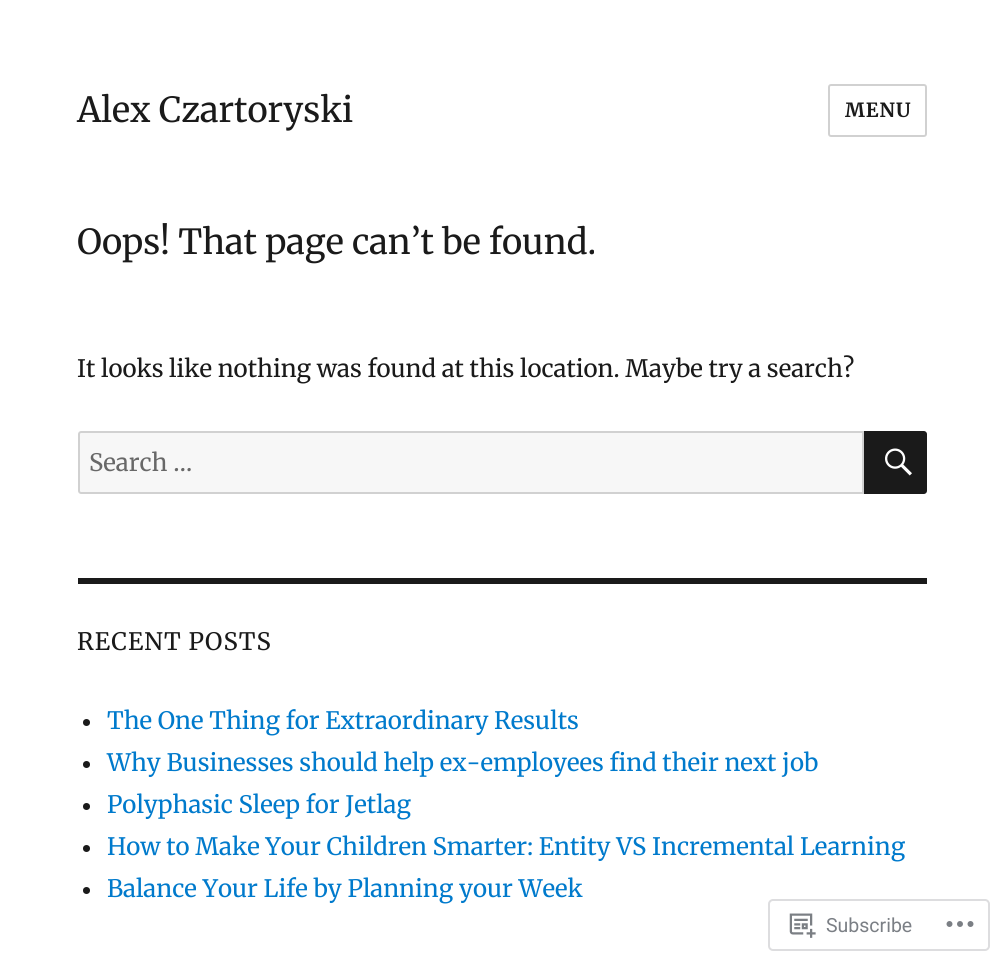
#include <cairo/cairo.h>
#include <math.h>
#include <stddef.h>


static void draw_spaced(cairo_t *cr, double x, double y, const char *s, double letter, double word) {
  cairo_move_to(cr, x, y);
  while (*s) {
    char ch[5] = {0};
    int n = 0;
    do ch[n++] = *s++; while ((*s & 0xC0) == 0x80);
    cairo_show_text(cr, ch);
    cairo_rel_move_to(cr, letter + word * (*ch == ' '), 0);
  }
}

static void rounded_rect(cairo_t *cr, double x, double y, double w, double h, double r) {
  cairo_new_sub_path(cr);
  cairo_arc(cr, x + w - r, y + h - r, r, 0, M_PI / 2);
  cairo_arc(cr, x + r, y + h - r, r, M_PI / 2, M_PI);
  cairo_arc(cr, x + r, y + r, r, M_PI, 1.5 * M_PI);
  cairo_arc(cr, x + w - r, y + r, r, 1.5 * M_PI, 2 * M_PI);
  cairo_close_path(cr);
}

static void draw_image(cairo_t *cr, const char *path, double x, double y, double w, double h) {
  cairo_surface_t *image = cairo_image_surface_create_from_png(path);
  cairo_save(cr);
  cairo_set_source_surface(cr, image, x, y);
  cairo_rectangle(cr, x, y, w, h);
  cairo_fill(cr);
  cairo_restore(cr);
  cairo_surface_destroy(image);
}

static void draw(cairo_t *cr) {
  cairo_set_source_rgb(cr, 1, 1, 1);
  cairo_paint(cr);
  rounded_rect(cr, 829, 85, 97, 51, 2);
  cairo_set_source_rgb(cr, 209 / 255.0, 209 / 255.0, 209 / 255.0);
  cairo_stroke(cr);
  cairo_set_source_rgb(cr, 247 / 255.0, 247 / 255.0, 247 / 255.0);
  cairo_new_path(cr);
  cairo_move_to(cr, 81, 432);
  cairo_line_to(cr, 863, 432);
  cairo_line_to(cr, 863, 493);
  cairo_line_to(cr, 81, 493);
  cairo_curve_to(cr, 80, 493, 79, 492, 79, 491);
  cairo_line_to(cr, 79, 434);
  cairo_curve_to(cr, 79, 433, 80, 432, 81, 432);
  cairo_close_path(cr);
  cairo_fill_preserve(cr);
  cairo_set_source_rgb(cr, 209 / 255.0, 209 / 255.0, 209 / 255.0);
  cairo_stroke(cr);
  cairo_set_source_rgb(cr, 26 / 255.0, 26 / 255.0, 26 / 255.0);
  cairo_new_path(cr);
  cairo_move_to(cr, 864, 431);
  cairo_line_to(cr, 924, 431);
  cairo_curve_to(cr, 925.5, 431, 927, 432.5, 927, 434);
  cairo_line_to(cr, 927, 491);
  cairo_curve_to(cr, 927, 492.5, 925.5, 494, 924, 494);
  cairo_line_to(cr, 864, 494);
  cairo_close_path(cr);
  cairo_fill(cr);
  draw_image(cr, "images/1.png", 885, 448, 27, 28);
  cairo_rectangle(cr, 78, 578, 849, 6);
  cairo_fill(cr);
  cairo_arc(cr, 86.5, 722.5, 3.5, 0, 2 * M_PI);
  cairo_fill(cr);
  cairo_arc(cr, 86.5, 764.5, 3.5, 0, 2 * M_PI);
  cairo_fill(cr);
  cairo_arc(cr, 86.5, 806.5, 3.5, 0, 2 * M_PI);
  cairo_fill(cr);
  cairo_arc(cr, 86.5, 848.5, 3.5, 0, 2 * M_PI);
  cairo_fill(cr);
  cairo_arc(cr, 86.5, 890.5, 3.5, 0, 2 * M_PI);
  cairo_fill(cr);
  rounded_rect(cr, 769, 900, 220, 50, 4);
  cairo_set_source_rgb(cr, 221 / 255.0, 221 / 255.0, 223 / 255.0);
  cairo_stroke(cr);
  draw_image(cr, "images/2.png", 789, 913, 27, 25);
  draw_image(cr, "images/3.png", 946, 921, 28, 6);
  cairo_select_font_face(cr, "Merriweather", CAIRO_FONT_SLANT_NORMAL, CAIRO_FONT_WEIGHT_NORMAL);
  cairo_set_font_size(cr, 34.5);
  cairo_set_source_rgb(cr, 26 / 255.0, 26 / 255.0, 26 / 255.0);
  cairo_move_to(cr, 77, 122);
  cairo_show_text(cr, "Alex Czartoryski");
  cairo_select_font_face(cr, "Merriweather", CAIRO_FONT_SLANT_NORMAL, CAIRO_FONT_WEIGHT_BOLD);
  cairo_set_font_size(cr, 19.5);
  draw_spaced(cr, 845, 117, "MENU", 1, 0);
  cairo_select_font_face(cr, "Merriweather", CAIRO_FONT_SLANT_NORMAL, CAIRO_FONT_WEIGHT_NORMAL);
  cairo_set_font_size(cr, 34.5);
  cairo_move_to(cr, 77, 254);
  cairo_show_text(cr, "Oops! That page can’t be found.");
  cairo_set_font_size(cr, 24);
  cairo_move_to(cr, 77, 377);
  cairo_show_text(cr, "It looks like nothing was found at this location. Maybe try a search?");
  cairo_set_source_rgb(cr, 104 / 255.0, 104 / 255.0, 104 / 255.0);
  cairo_move_to(cr, 89, 471);
  cairo_show_text(cr, "Search …");
  cairo_set_source_rgb(cr, 26 / 255.0, 26 / 255.0, 26 / 255.0);
  draw_spaced(cr, 77, 650, "RECENT POSTS", 1.1, 0);
  cairo_set_source_rgb(cr, 0, 122 / 255.0, 204 / 255.0);
  cairo_move_to(cr, 107, 729);
  cairo_show_text(cr, "The One Thing for Extraordinary Results");
  cairo_move_to(cr, 107, 771);
  cairo_show_text(cr, "Why Businesses should help ex-employees find their next job");
  cairo_move_to(cr, 107, 813);
  cairo_show_text(cr, "Polyphasic Sleep for Jetlag");
  cairo_move_to(cr, 107, 855);
  cairo_show_text(cr, "How to Make Your Children Smarter: Entity VS Incremental Learning");
  cairo_move_to(cr, 107, 897);
  cairo_show_text(cr, "Balance Your Life by Planning your Week");
  cairo_select_font_face(cr, "Roboto", CAIRO_FONT_SLANT_NORMAL, CAIRO_FONT_WEIGHT_NORMAL);
  cairo_set_font_size(cr, 19.5);
  cairo_set_source_rgb(cr, 123 / 255.0, 127 / 255.0, 133 / 255.0);
  cairo_move_to(cr, 826, 932);
  cairo_show_text(cr, "Subscribe");
}

int main(void) {
  cairo_surface_t *surface = cairo_image_surface_create(CAIRO_FORMAT_RGB24, 1005, 965);
  cairo_t *cr = cairo_create(surface);
  cairo_font_options_t *options = cairo_font_options_create();
  cairo_font_options_set_hint_metrics(options, CAIRO_HINT_METRICS_OFF);
  cairo_font_options_set_hint_style(options, CAIRO_HINT_STYLE_NONE);
  cairo_set_font_options(cr, options);
  cairo_set_miter_limit(cr, 4);
  draw(cr);
  cairo_surface_write_to_png(surface, "out.png");
  cairo_font_options_destroy(options);
  cairo_destroy(cr);
  cairo_surface_destroy(surface);
  return 0;
}
